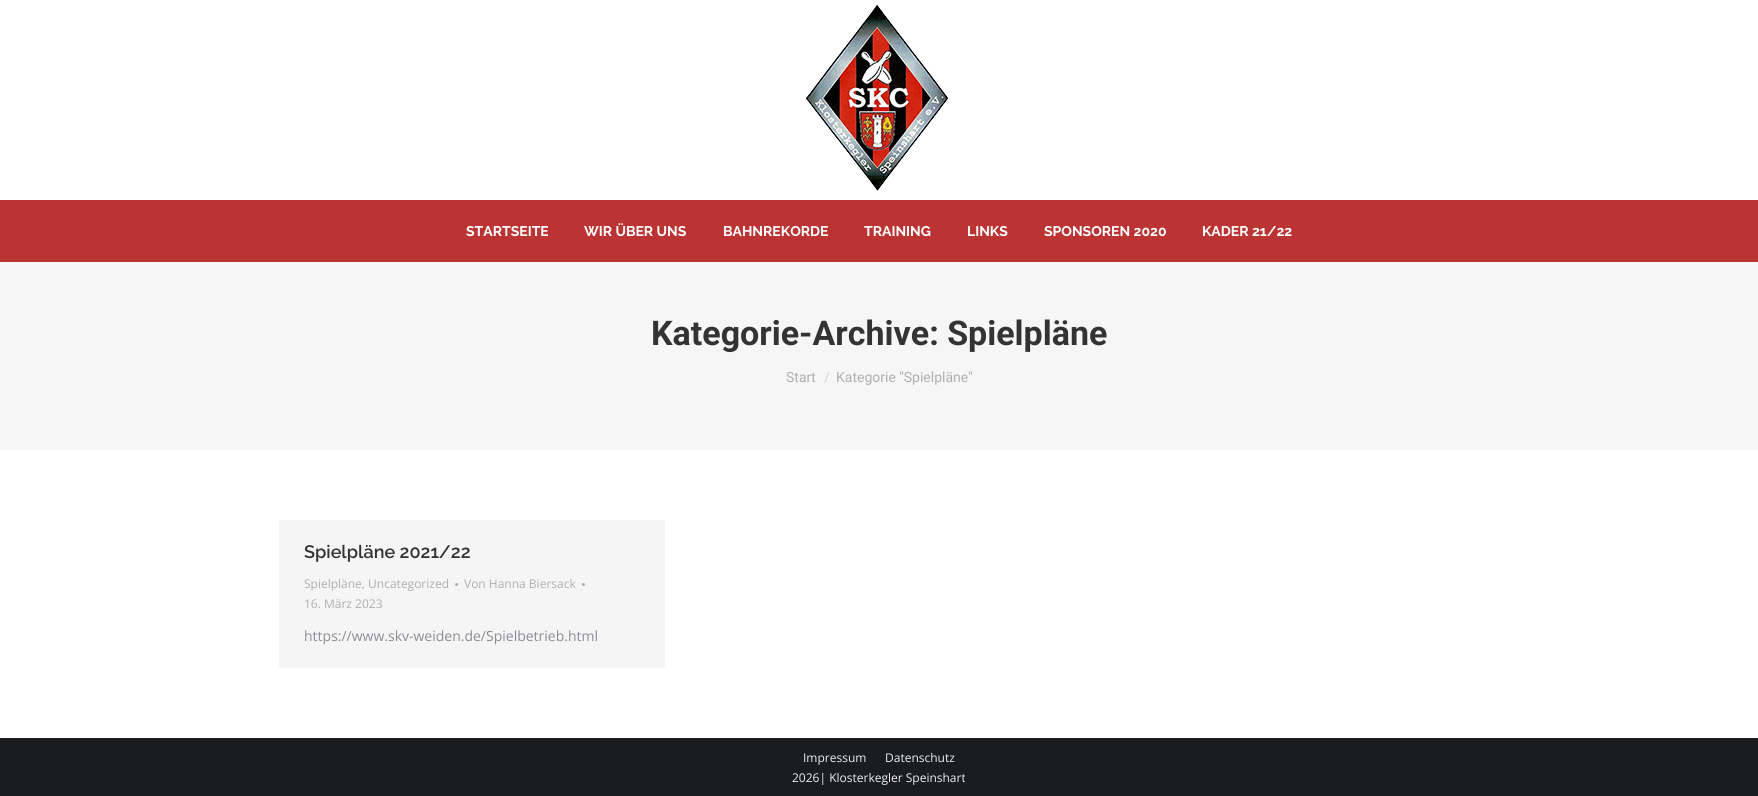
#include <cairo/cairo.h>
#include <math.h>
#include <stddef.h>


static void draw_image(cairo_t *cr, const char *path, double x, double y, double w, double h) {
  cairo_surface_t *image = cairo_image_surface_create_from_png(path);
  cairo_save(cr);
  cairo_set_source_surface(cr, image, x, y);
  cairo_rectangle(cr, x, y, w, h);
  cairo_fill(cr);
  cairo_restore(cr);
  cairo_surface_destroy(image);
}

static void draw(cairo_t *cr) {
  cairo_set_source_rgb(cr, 1, 1, 1);
  cairo_paint(cr);
  draw_image(cr, "images/1.png", 806, 5, 142, 186);
  cairo_set_source_rgb(cr, 187 / 255.0, 51 / 255.0, 51 / 255.0);
  cairo_rectangle(cr, 0, 200, 1758, 62);
  cairo_fill(cr);
  cairo_set_source_rgb(cr, 246 / 255.0, 246 / 255.0, 246 / 255.0);
  cairo_rectangle(cr, 0, 262, 1758, 188);
  cairo_fill(cr);
  cairo_set_source_rgb(cr, 245 / 255.0, 245 / 255.0, 245 / 255.0);
  cairo_rectangle(cr, 279, 520, 386, 148);
  cairo_fill(cr);
  cairo_set_source_rgb(cr, 173 / 255.0, 175 / 255.0, 179 / 255.0);
  cairo_arc(cr, 456.5, 584.5, 1.5, 0, 2 * M_PI);
  cairo_fill(cr);
  cairo_arc(cr, 583.5, 584.5, 1.5, 0, 2 * M_PI);
  cairo_fill(cr);
  cairo_set_source_rgb(cr, 26 / 255.0, 28 / 255.0, 32 / 255.0);
  cairo_rectangle(cr, 0, 738, 1758, 58);
  cairo_fill(cr);
  cairo_select_font_face(cr, "Raleway", CAIRO_FONT_SLANT_NORMAL, CAIRO_FONT_WEIGHT_BOLD);
  cairo_set_font_size(cr, 14);
  cairo_set_source_rgb(cr, 1, 1, 1);
  cairo_move_to(cr, 466, 236);
  cairo_show_text(cr, "STARTSEITE");
  cairo_move_to(cr, 584, 236);
  cairo_show_text(cr, "WIR ÜBER UNS");
  cairo_move_to(cr, 723, 236);
  cairo_show_text(cr, "BAHNREKORDE");
  cairo_move_to(cr, 864, 236);
  cairo_show_text(cr, "TRAINING");
  cairo_move_to(cr, 967, 236);
  cairo_show_text(cr, "LINKS");
  cairo_move_to(cr, 1044, 236);
  cairo_show_text(cr, "SPONSOREN 2020");
  cairo_move_to(cr, 1202, 236);
  cairo_show_text(cr, "KADER 21/22");
  cairo_select_font_face(cr, "Roboto", CAIRO_FONT_SLANT_NORMAL, CAIRO_FONT_WEIGHT_BOLD);
  cairo_set_font_size(cr, 34);
  cairo_set_source_rgb(cr, 51 / 255.0, 51 / 255.0, 51 / 255.0);
  cairo_move_to(cr, 651, 345);
  cairo_show_text(cr, "Kategorie-Archive: Spielpläne");
  cairo_select_font_face(cr, "Roboto", CAIRO_FONT_SLANT_NORMAL, CAIRO_FONT_WEIGHT_NORMAL);
  cairo_set_font_size(cr, 14);
  cairo_set_source_rgb(cr, 173 / 255.0, 175 / 255.0, 179 / 255.0);
  cairo_move_to(cr, 786, 382);
  cairo_show_text(cr, "Start");
  cairo_set_source_rgb(cr, 210 / 255.0, 211 / 255.0, 213 / 255.0);
  cairo_move_to(cr, 824, 382);
  cairo_show_text(cr, "/");
  cairo_set_source_rgb(cr, 173 / 255.0, 175 / 255.0, 179 / 255.0);
  cairo_move_to(cr, 836, 382);
  cairo_show_text(cr, "Kategorie \"Spielpläne\"");
  cairo_select_font_face(cr, "Raleway SemiBold", CAIRO_FONT_SLANT_NORMAL, CAIRO_FONT_WEIGHT_NORMAL);
  cairo_set_font_size(cr, 18);
  cairo_set_source_rgb(cr, 51 / 255.0, 51 / 255.0, 51 / 255.0);
  cairo_move_to(cr, 304, 558);
  cairo_show_text(cr, "Spielpläne 2021/22");
  cairo_select_font_face(cr, "Open Sans", CAIRO_FONT_SLANT_NORMAL, CAIRO_FONT_WEIGHT_NORMAL);
  cairo_set_font_size(cr, 12);
  cairo_set_source_rgb(cr, 173 / 255.0, 175 / 255.0, 179 / 255.0);
  cairo_move_to(cr, 304, 588);
  cairo_show_text(cr, "Spielpläne, Uncategorized");
  cairo_move_to(cr, 464, 588);
  cairo_show_text(cr, "Von Hanna Biersack");
  cairo_move_to(cr, 304, 608);
  cairo_show_text(cr, "16. März 2023");
  cairo_set_font_size(cr, 14);
  cairo_set_source_rgb(cr, 139 / 255.0, 141 / 255.0, 148 / 255.0);
  cairo_move_to(cr, 304, 641);
  cairo_show_text(cr, "https://www.skv-weiden.de/Spielbetrieb.html");
  cairo_set_font_size(cr, 12);
  cairo_set_source_rgb(cr, 238 / 255.0, 238 / 255.0, 238 / 255.0);
  cairo_move_to(cr, 803, 762);
  cairo_show_text(cr, "Impressum");
  cairo_move_to(cr, 885, 762);
  cairo_show_text(cr, "Datenschutz");
  cairo_move_to(cr, 792, 782);
  cairo_show_text(cr, "2026| Klosterkegler Speinshart");
}

int main(void) {
  cairo_surface_t *surface = cairo_image_surface_create(CAIRO_FORMAT_RGB24, 1758, 796);
  cairo_t *cr = cairo_create(surface);
  cairo_font_options_t *options = cairo_font_options_create();
  cairo_font_options_set_hint_metrics(options, CAIRO_HINT_METRICS_OFF);
  cairo_font_options_set_hint_style(options, CAIRO_HINT_STYLE_NONE);
  cairo_set_font_options(cr, options);
  cairo_set_miter_limit(cr, 4);
  draw(cr);
  cairo_surface_write_to_png(surface, "out.png");
  cairo_font_options_destroy(options);
  cairo_destroy(cr);
  cairo_surface_destroy(surface);
  return 0;
}
